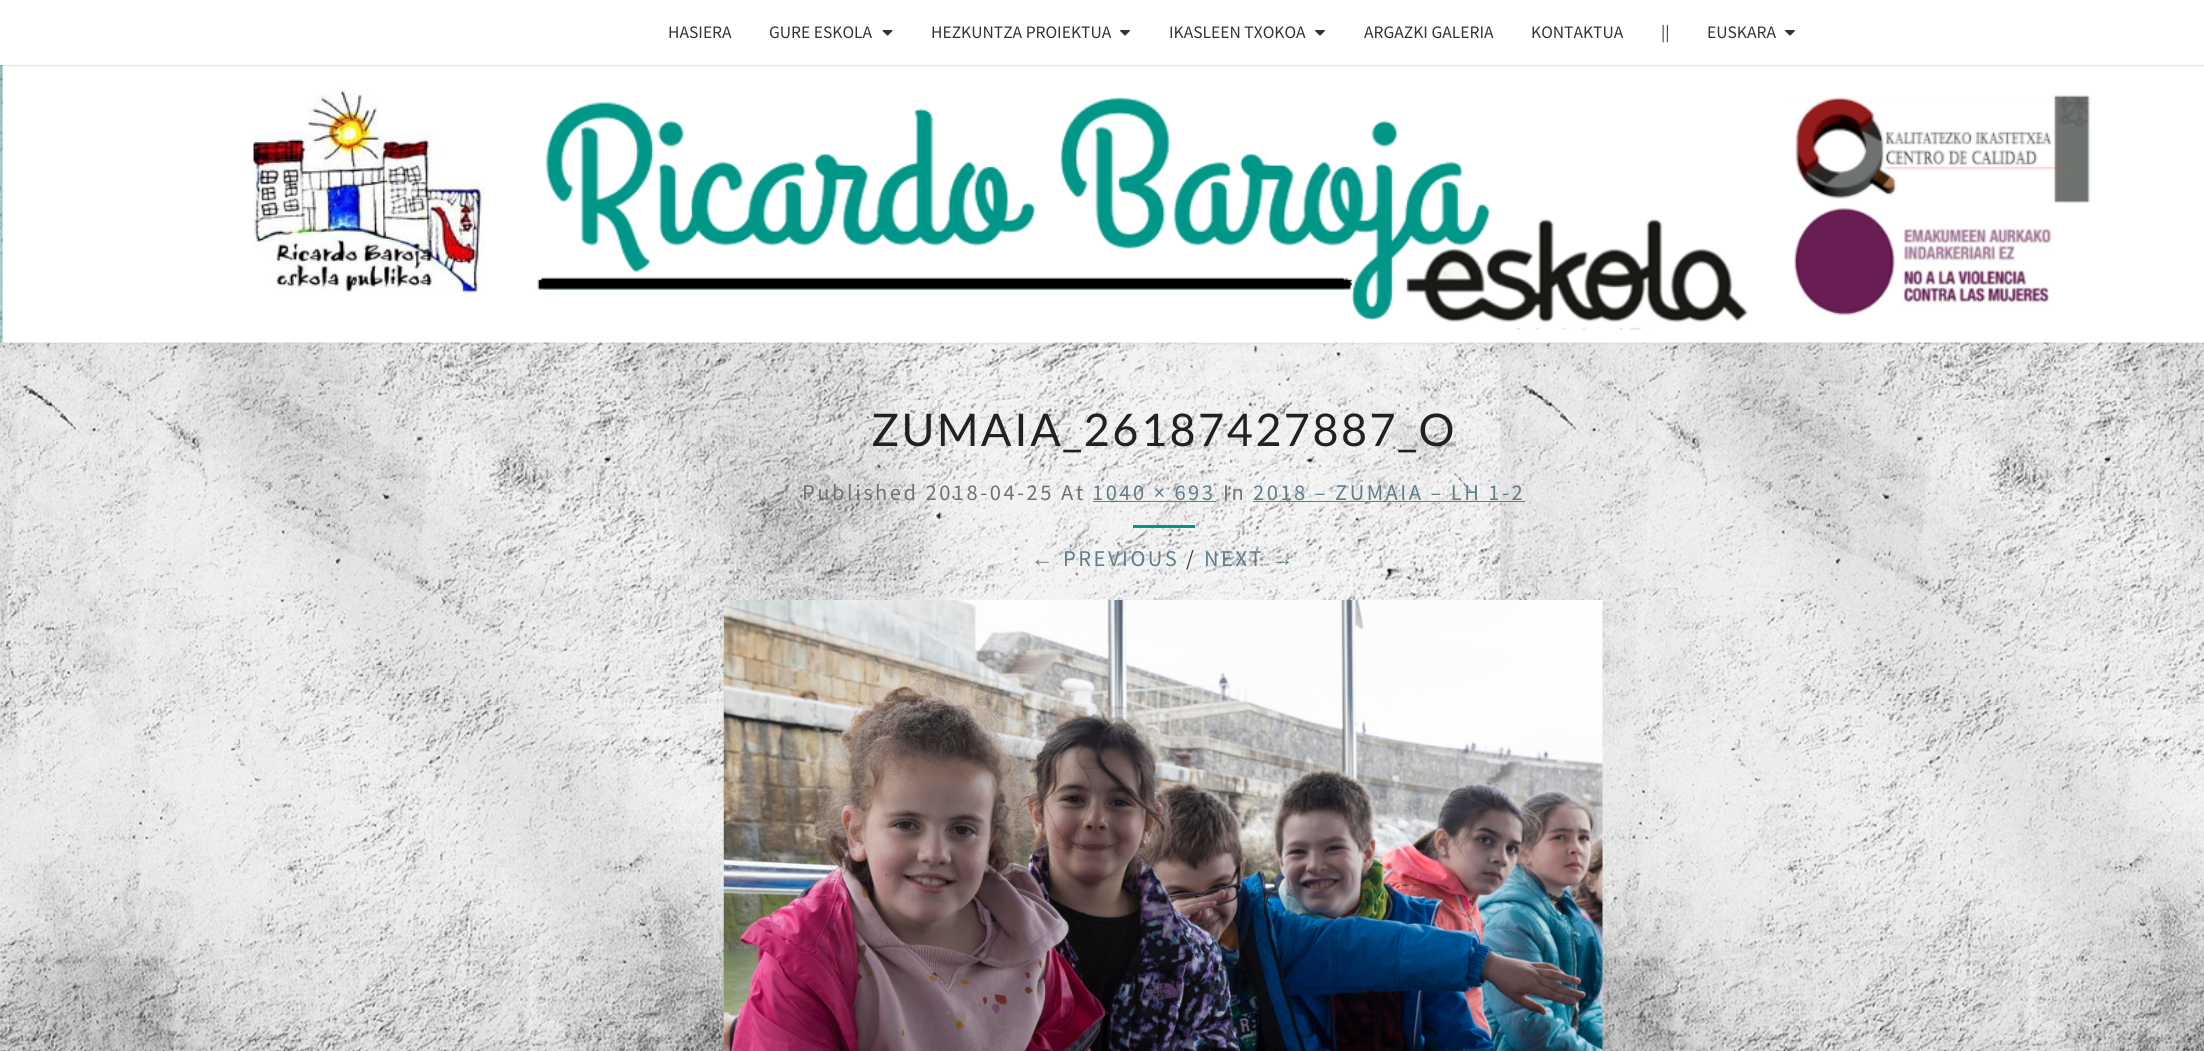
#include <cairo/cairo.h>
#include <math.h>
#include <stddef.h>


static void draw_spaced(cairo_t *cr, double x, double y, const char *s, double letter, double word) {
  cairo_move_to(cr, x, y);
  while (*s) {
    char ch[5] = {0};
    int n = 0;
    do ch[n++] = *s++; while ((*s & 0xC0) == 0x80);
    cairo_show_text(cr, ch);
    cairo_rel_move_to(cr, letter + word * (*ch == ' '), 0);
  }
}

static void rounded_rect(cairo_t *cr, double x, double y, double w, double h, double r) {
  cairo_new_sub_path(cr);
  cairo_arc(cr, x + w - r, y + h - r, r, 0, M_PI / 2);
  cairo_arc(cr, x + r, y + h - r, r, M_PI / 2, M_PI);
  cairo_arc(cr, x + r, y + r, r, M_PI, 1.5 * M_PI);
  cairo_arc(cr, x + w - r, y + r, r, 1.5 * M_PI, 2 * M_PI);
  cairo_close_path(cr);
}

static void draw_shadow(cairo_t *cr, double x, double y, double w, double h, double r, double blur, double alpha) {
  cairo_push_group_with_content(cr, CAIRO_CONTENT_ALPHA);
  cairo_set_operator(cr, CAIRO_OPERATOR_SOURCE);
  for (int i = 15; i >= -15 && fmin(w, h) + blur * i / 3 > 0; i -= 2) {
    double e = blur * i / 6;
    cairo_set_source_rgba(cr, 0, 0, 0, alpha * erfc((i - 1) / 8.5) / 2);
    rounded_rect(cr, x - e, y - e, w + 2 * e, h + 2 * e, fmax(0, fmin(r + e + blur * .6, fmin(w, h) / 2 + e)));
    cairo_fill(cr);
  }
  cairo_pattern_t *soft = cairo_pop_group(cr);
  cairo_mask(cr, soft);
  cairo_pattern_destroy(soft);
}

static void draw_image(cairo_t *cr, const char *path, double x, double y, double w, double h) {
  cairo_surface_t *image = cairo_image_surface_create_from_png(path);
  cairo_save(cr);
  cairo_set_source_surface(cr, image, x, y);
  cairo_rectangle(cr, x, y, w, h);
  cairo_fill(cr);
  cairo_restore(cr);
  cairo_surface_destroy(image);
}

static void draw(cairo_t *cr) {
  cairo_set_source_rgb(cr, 1, 1, 1);
  cairo_paint(cr);
  draw_image(cr, "images/1.png", 0, 65, 2204, 986);
  cairo_save(cr);
  cairo_set_fill_rule(cr, CAIRO_FILL_RULE_EVEN_ODD);
  cairo_new_path(cr);
  cairo_move_to(cr, 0, 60);
  cairo_line_to(cr, 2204, 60);
  cairo_line_to(cr, 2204, 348);
  cairo_line_to(cr, 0, 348);
  cairo_close_path(cr);
  cairo_move_to(cr, 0, 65);
  cairo_line_to(cr, 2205, 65);
  cairo_line_to(cr, 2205, 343);
  cairo_line_to(cr, 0, 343);
  cairo_close_path(cr);
  cairo_clip(cr);
  cairo_set_source_rgb(cr, 182 / 255.0, 182 / 255.0, 182 / 255.0);
  draw_shadow(cr, -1, 64, 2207, 280, 0, 1, 0.3);
  cairo_restore(cr);
  draw_image(cr, "images/4.png", 0, 65, 2204, 278);
  cairo_set_source_rgb(cr, 100 / 255.0, 100 / 255.0, 100 / 255.0);
  draw_shadow(cr, 0, 1, 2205, 65, 0, 0.5, 0.2);
  cairo_set_source_rgb(cr, 1, 1, 1);
  cairo_rectangle(cr, 0, 0, 2204, 65);
  cairo_fill(cr);
  draw_image(cr, "images/2.png", 882, 30, 11, 6);
  draw_image(cr, "images/3.png", 1120, 30, 10, 6);
  draw_image(cr, "images/3.png", 1315, 30, 10, 6);
  draw_image(cr, "images/3.png", 1785, 30, 10, 6);
  cairo_set_source_rgb(cr, 96 / 255.0, 125 / 255.0, 139 / 255.0);
  cairo_rectangle(cr, 1093, 501, 123, 1);
  cairo_fill(cr);
  cairo_rectangle(cr, 1253, 501, 272, 1);
  cairo_fill(cr);
  cairo_set_source_rgb(cr, 0, 150 / 255.0, 136 / 255.0);
  cairo_rectangle(cr, 1133, 525, 62, 3);
  cairo_fill(cr);
  draw_image(cr, "images/5.png", 723, 600, 880, 451);
  cairo_select_font_face(cr, "Source Sans Pro", CAIRO_FONT_SLANT_NORMAL, CAIRO_FONT_WEIGHT_NORMAL);
  cairo_set_font_size(cr, 17.5);
  cairo_set_source_rgb(cr, 51 / 255.0, 51 / 255.0, 51 / 255.0);
  cairo_move_to(cr, 668, 38);
  cairo_show_text(cr, "HASIERA");
  cairo_move_to(cr, 769, 38);
  cairo_show_text(cr, "GURE ESKOLA");
  cairo_move_to(cr, 931, 38);
  cairo_show_text(cr, "HEZKUNTZA PROIEKTUA");
  cairo_move_to(cr, 1169, 38);
  cairo_show_text(cr, "IKASLEEN TXOKOA");
  cairo_move_to(cr, 1364, 38);
  cairo_show_text(cr, "ARGAZKI GALERIA");
  cairo_move_to(cr, 1531, 38);
  cairo_show_text(cr, "KONTAKTUA");
  cairo_move_to(cr, 1661, 38);
  cairo_show_text(cr, "||");
  cairo_move_to(cr, 1707, 38);
  cairo_show_text(cr, "EUSKARA");
  cairo_select_font_face(cr, "Lato", CAIRO_FONT_SLANT_NORMAL, CAIRO_FONT_WEIGHT_NORMAL);
  cairo_set_font_size(cr, 45);
  cairo_set_source_rgb(cr, 33 / 255.0, 33 / 255.0, 33 / 255.0);
  draw_spaced(cr, 871, 446, "ZUMAIA_26187427887_O", 2.5, 0);
  cairo_select_font_face(cr, "Source Sans Pro", CAIRO_FONT_SLANT_NORMAL, CAIRO_FONT_WEIGHT_NORMAL);
  cairo_set_font_size(cr, 22.5);
  cairo_set_source_rgb(cr, 114 / 255.0, 114 / 255.0, 114 / 255.0);
  draw_spaced(cr, 802, 500, "Published 2018-04-25 At", 2.5, 0);
  cairo_set_source_rgb(cr, 96 / 255.0, 125 / 255.0, 139 / 255.0);
  draw_spaced(cr, 1092, 500, "1040 × 693", 2.5, 0);
  cairo_set_source_rgb(cr, 114 / 255.0, 114 / 255.0, 114 / 255.0);
  draw_spaced(cr, 1223, 500, "In", 2.5, 0);
  cairo_set_source_rgb(cr, 96 / 255.0, 125 / 255.0, 139 / 255.0);
  draw_spaced(cr, 1253, 500, "2018 – ZUMAIA – LH 1-2", 2.5, 0);
  cairo_select_font_face(cr, "Liberation Sans", CAIRO_FONT_SLANT_NORMAL, CAIRO_FONT_WEIGHT_NORMAL);
  draw_spaced(cr, 1031, 566, "←", 2.5, 0);
  cairo_select_font_face(cr, "Source Sans Pro", CAIRO_FONT_SLANT_NORMAL, CAIRO_FONT_WEIGHT_NORMAL);
  draw_spaced(cr, 1063, 566, "PREVIOUS", 2.5, 0);
  cairo_set_source_rgb(cr, 66 / 255.0, 66 / 255.0, 66 / 255.0);
  draw_spaced(cr, 1186, 566, "/", 2.5, 0);
  cairo_set_source_rgb(cr, 96 / 255.0, 125 / 255.0, 139 / 255.0);
  draw_spaced(cr, 1204, 566, "NEXT", 2.5, 0);
  cairo_select_font_face(cr, "Liberation Sans", CAIRO_FONT_SLANT_NORMAL, CAIRO_FONT_WEIGHT_NORMAL);
  draw_spaced(cr, 1271, 566, "→", 2.5, 0);
}

int main(void) {
  cairo_surface_t *surface = cairo_image_surface_create(CAIRO_FORMAT_RGB24, 2204, 1051);
  cairo_t *cr = cairo_create(surface);
  cairo_font_options_t *options = cairo_font_options_create();
  cairo_font_options_set_hint_metrics(options, CAIRO_HINT_METRICS_OFF);
  cairo_font_options_set_hint_style(options, CAIRO_HINT_STYLE_NONE);
  cairo_set_font_options(cr, options);
  cairo_set_miter_limit(cr, 4);
  draw(cr);
  cairo_surface_write_to_png(surface, "out.png");
  cairo_font_options_destroy(options);
  cairo_destroy(cr);
  cairo_surface_destroy(surface);
  return 0;
}
